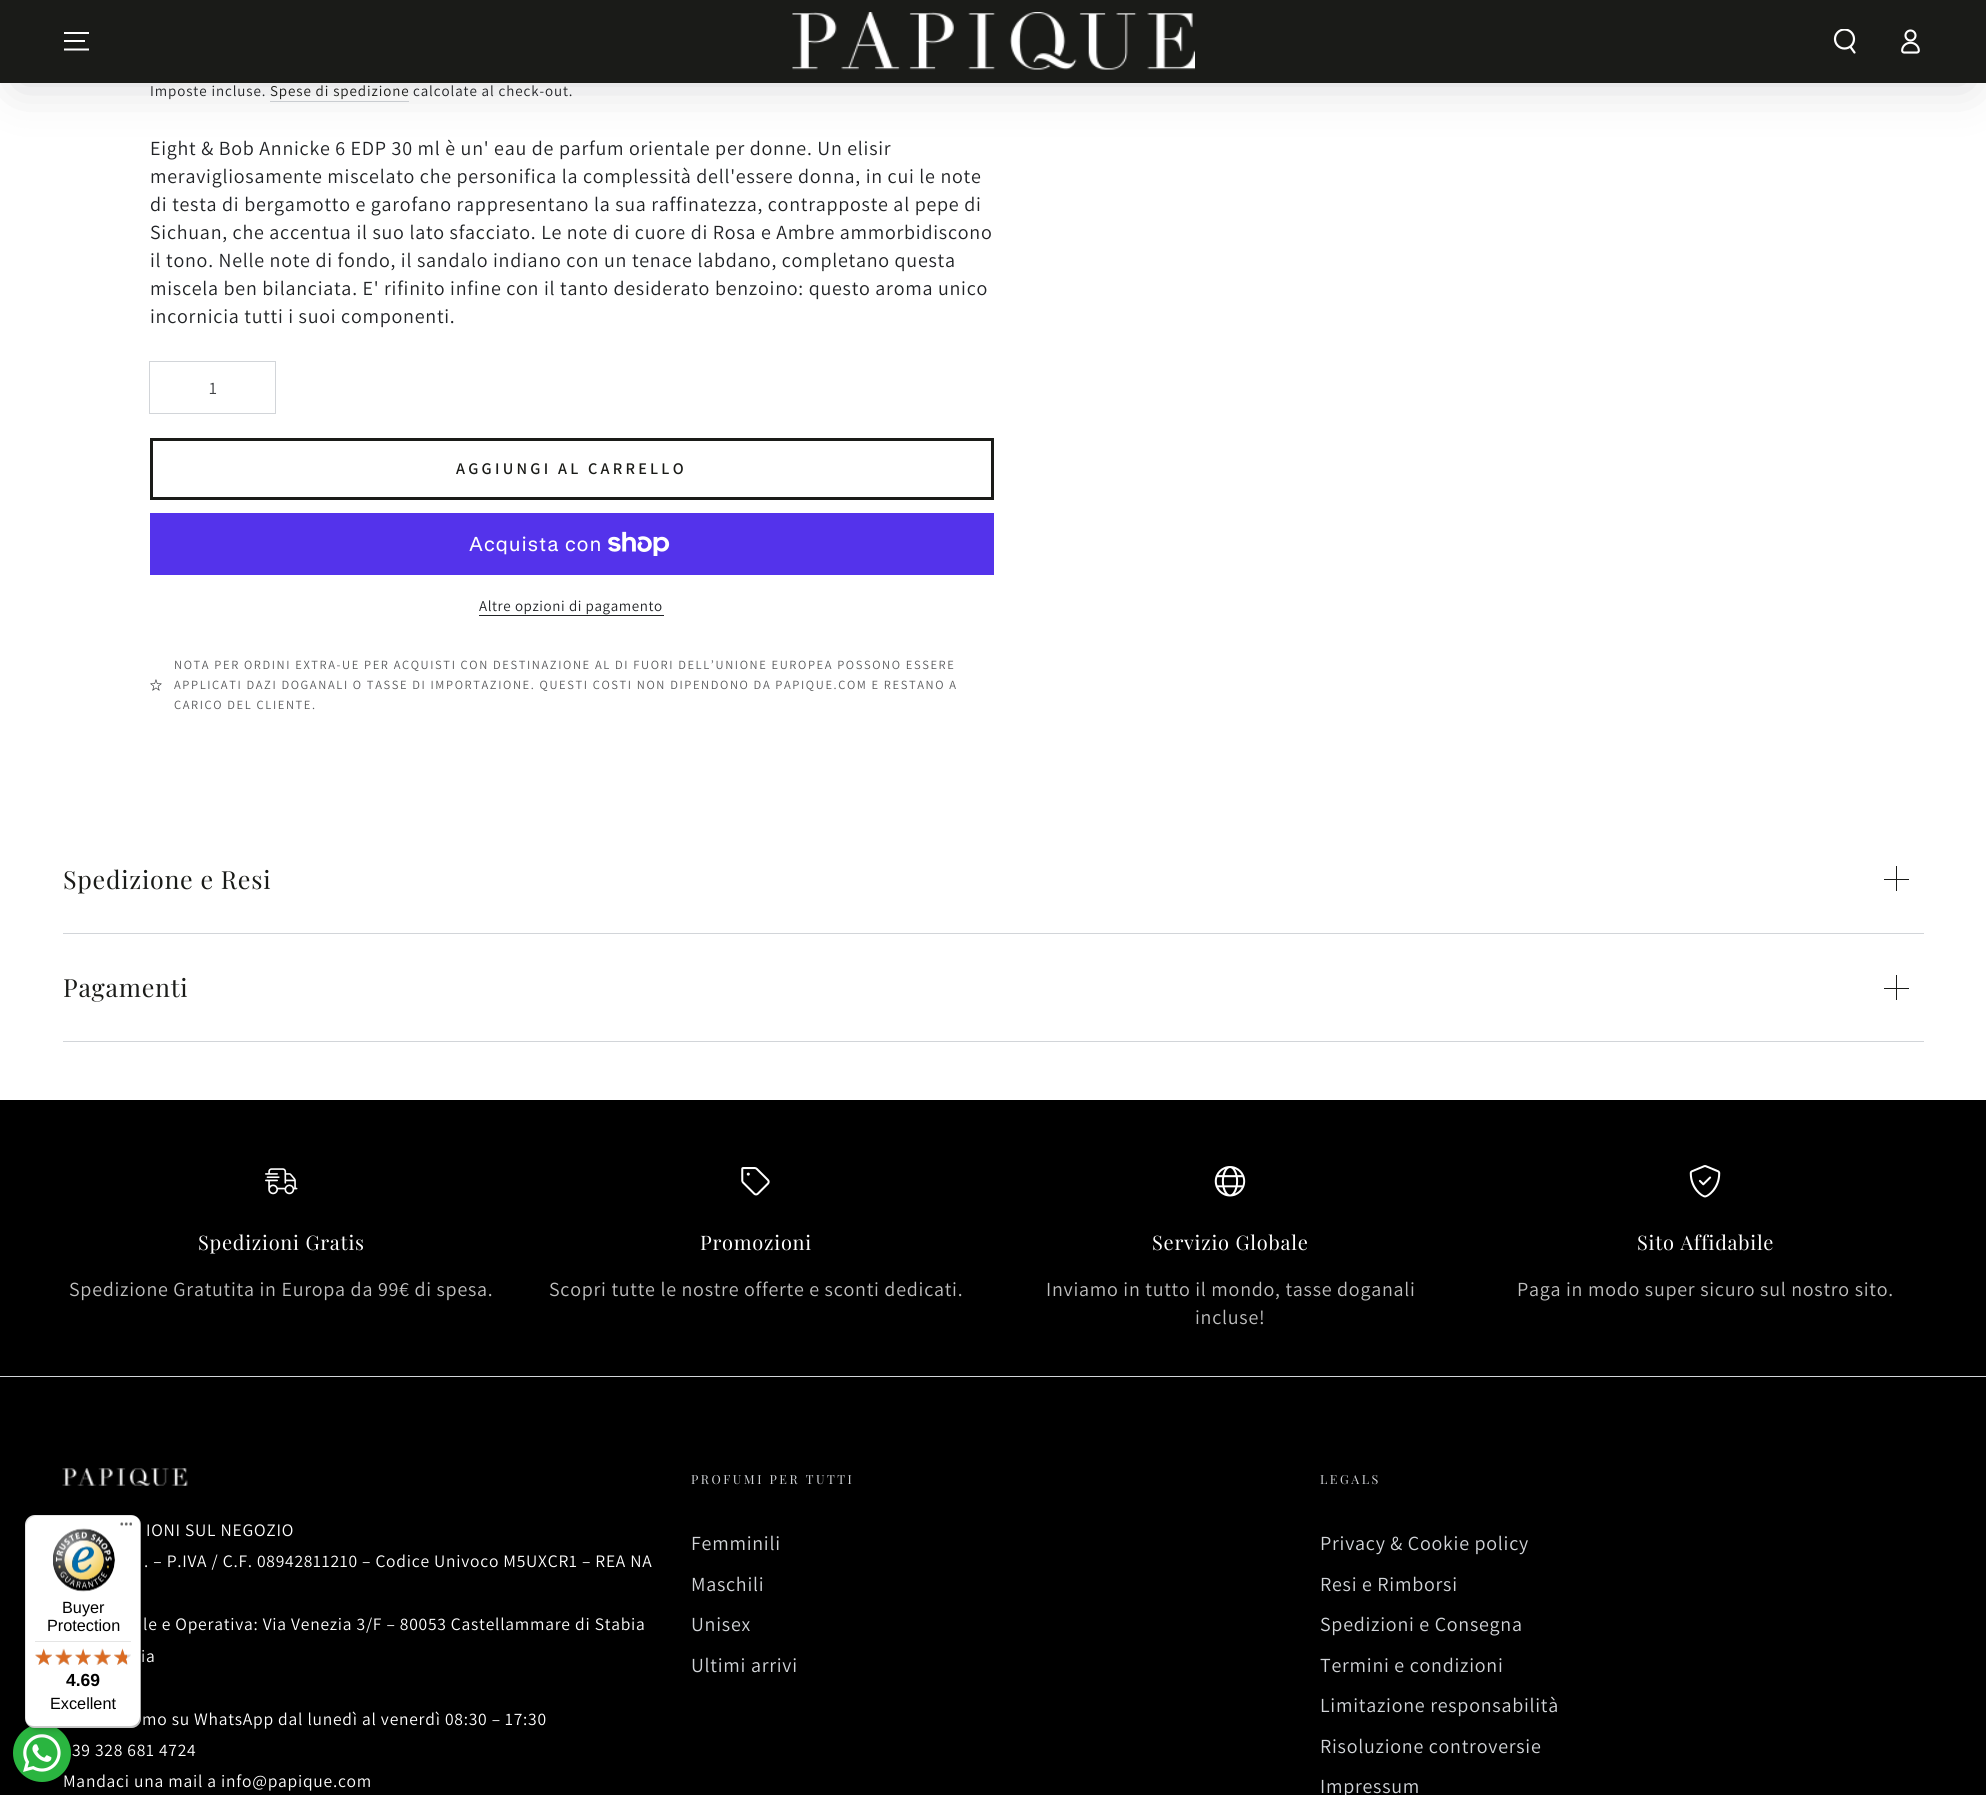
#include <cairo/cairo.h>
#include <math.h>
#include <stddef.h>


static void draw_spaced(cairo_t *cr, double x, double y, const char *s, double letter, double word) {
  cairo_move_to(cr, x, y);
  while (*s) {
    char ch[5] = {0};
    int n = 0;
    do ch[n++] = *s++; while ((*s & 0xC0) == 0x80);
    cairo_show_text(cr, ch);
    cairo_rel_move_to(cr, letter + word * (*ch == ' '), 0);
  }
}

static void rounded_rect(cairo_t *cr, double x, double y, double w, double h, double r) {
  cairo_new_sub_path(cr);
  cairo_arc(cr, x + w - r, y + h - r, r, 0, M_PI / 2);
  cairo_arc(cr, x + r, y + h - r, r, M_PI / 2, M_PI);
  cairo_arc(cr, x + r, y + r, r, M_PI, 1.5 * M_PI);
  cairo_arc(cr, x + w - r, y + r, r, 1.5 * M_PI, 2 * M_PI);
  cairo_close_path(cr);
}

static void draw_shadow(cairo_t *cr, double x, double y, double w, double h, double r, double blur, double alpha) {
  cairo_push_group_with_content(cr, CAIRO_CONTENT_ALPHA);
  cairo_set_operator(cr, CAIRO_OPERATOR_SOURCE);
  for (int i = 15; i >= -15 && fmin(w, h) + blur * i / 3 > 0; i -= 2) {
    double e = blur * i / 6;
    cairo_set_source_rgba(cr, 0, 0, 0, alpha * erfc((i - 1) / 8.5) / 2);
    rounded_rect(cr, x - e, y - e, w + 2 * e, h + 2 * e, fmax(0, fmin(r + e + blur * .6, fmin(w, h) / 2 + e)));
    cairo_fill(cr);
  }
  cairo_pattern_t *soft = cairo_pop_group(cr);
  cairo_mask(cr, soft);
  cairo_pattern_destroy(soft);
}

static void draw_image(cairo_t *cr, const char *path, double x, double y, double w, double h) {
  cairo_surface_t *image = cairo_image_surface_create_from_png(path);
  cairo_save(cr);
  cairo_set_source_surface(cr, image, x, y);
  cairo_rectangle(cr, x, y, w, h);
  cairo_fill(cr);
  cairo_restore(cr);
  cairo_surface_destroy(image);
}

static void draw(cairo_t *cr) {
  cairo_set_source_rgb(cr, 1, 1, 1);
  cairo_paint(cr);
  cairo_set_source_rgb(cr, 210 / 255.0, 213 / 255.0, 217 / 255.0);
  cairo_rectangle(cr, 270, 101, 139, 1);
  cairo_fill(cr);
  cairo_set_source_rgb(cr, 33 / 255.0, 35 / 255.0, 38 / 255.0);
  draw_shadow(cr, 19, 58, 1949, 25, 12.5, 25, 0.2);
  cairo_set_source_rgb(cr, 26 / 255.0, 27 / 255.0, 24 / 255.0);
  cairo_rectangle(cr, 0, 0, 1986, 83);
  cairo_fill(cr);
  cairo_new_path(cr);
  cairo_move_to(cr, 64, 49.5);
  cairo_line_to(cr, 89, 49.5);
  cairo_move_to(cr, 64, 41);
  cairo_line_to(cr, 85, 41);
  cairo_move_to(cr, 64, 33);
  cairo_line_to(cr, 89, 33);
  cairo_set_source_rgb(cr, 1, 1, 1);
  cairo_stroke(cr);
  draw_image(cr, "images/1.png", 792, 12, 403, 58);
  cairo_save(cr);
  cairo_rectangle(cr, 1833, 29, 25, 25);
  cairo_clip(cr);
  cairo_arc(cr, 1844.5, 39, 9.5, 0, 2 * M_PI);
  cairo_set_line_width(cr, 2.2);
  cairo_stroke(cr);
  cairo_restore(cr);
  cairo_new_path(cr);
  cairo_move_to(cr, 1850.5, 47);
  cairo_line_to(cr, 1854.5, 52.5);
  cairo_set_line_width(cr, 2.2);
  cairo_set_line_cap(cr, CAIRO_LINE_CAP_ROUND);
  cairo_stroke(cr);
  draw_image(cr, "images/2.png", 1901, 29, 19, 25);
  cairo_rectangle(cr, 149.5, 361.5, 126, 52);
  cairo_set_source_rgb(cr, 210 / 255.0, 213 / 255.0, 217 / 255.0);
  cairo_set_line_width(cr, 1);
  cairo_set_line_cap(cr, CAIRO_LINE_CAP_BUTT);
  cairo_stroke(cr);
  cairo_rectangle(cr, 151.5, 439.5, 841, 59);
  cairo_set_source_rgb(cr, 26 / 255.0, 27 / 255.0, 24 / 255.0);
  cairo_set_line_width(cr, 3);
  cairo_stroke(cr);
  cairo_set_source_rgb(cr, 84 / 255.0, 51 / 255.0, 235 / 255.0);
  cairo_rectangle(cr, 150, 513, 844, 62);
  cairo_fill(cr);
  draw_image(cr, "images/3.png", 608, 531, 62, 25);
  cairo_set_source_rgb(cr, 33 / 255.0, 35 / 255.0, 38 / 255.0);
  cairo_rectangle(cr, 479, 615, 185, 1);
  cairo_fill(cr);
  draw_image(cr, "images/4.png", 150, 679, 12, 12);
  cairo_set_source_rgb(cr, 210 / 255.0, 213 / 255.0, 217 / 255.0);
  cairo_rectangle(cr, 63, 933, 1861, 1);
  cairo_fill(cr);
  cairo_set_source_rgb(cr, 26 / 255.0, 27 / 255.0, 24 / 255.0);
  cairo_rectangle(cr, 1884, 879, 25, 1);
  cairo_fill(cr);
  cairo_rectangle(cr, 1896, 866, 1, 25);
  cairo_fill(cr);
  cairo_set_source_rgb(cr, 210 / 255.0, 213 / 255.0, 217 / 255.0);
  cairo_rectangle(cr, 63, 1041, 1861, 1);
  cairo_fill(cr);
  cairo_set_source_rgb(cr, 26 / 255.0, 27 / 255.0, 24 / 255.0);
  cairo_rectangle(cr, 1884, 988, 25, 1);
  cairo_fill(cr);
  cairo_rectangle(cr, 1896, 975, 1, 25);
  cairo_fill(cr);
  cairo_set_source_rgb(cr, 0, 0, 0);
  cairo_rectangle(cr, 0, 1100, 1986, 276);
  cairo_fill(cr);
  draw_image(cr, "images/5.png", 265, 1168, 33, 27);
  draw_image(cr, "images/6.png", 741, 1167, 29, 29);
  draw_image(cr, "images/7.png", 1214, 1166, 32, 31);
  draw_image(cr, "images/8.png", 1689, 1165, 32, 33);
  cairo_rectangle(cr, 0, 1377, 1986, 418);
  cairo_fill(cr);
  cairo_set_source_rgb(cr, 210 / 255.0, 213 / 255.0, 217 / 255.0);
  cairo_rectangle(cr, 0, 1376, 1986, 1);
  cairo_fill(cr);
  draw_image(cr, "images/9.png", 62, 1468, 126, 18);
  cairo_select_font_face(cr, "Assistant ExtraLight", CAIRO_FONT_SLANT_NORMAL, CAIRO_FONT_WEIGHT_NORMAL);
  cairo_set_font_size(cr, 15);
  cairo_set_source_rgb(cr, 33 / 255.0, 35 / 255.0, 38 / 255.0);
  draw_spaced(cr, 150, 96, "Imposte incluse.", 0.9, 0);
  cairo_set_source_rgb(cr, 26 / 255.0, 27 / 255.0, 24 / 255.0);
  draw_spaced(cr, 270, 96, "Spese di spedizione", 0.9, 0);
  cairo_set_source_rgb(cr, 33 / 255.0, 35 / 255.0, 38 / 255.0);
  draw_spaced(cr, 413, 96, "calcolate al check-out.", 0.9, 0);
  cairo_set_font_size(cr, 20);
  draw_spaced(cr, 150, 155, "Eight & Bob Annicke 6 EDP 30 ml è un' eau de parfum orientale per donne. Un elisir", 0.75, 0);
  draw_spaced(cr, 150, 183, "meravigliosamente miscelato che personifica la complessità dell'essere donna, in cui le note", 0.75, 0);
  draw_spaced(cr, 150, 211, "di testa di bergamotto e garofano rappresentano la sua raffinatezza, contrapposte al pepe di", 0.75, 0);
  draw_spaced(cr, 150, 239, "Sichuan, che accentua il suo lato sfacciato. Le note di cuore di Rosa e Ambre ammorbidiscono", 0.75, 0);
  draw_spaced(cr, 150, 267, "il tono. Nelle note di fondo, il sandalo indiano con un tenace labdano, completano questa", 0.75, 0);
  draw_spaced(cr, 150, 295, "miscela ben bilanciata. E' rifinito infine con il tanto desiderato benzoino: questo aroma unico", 0.75, 0);
  draw_spaced(cr, 150, 323, "incornicia tutti i suoi componenti.", 0.75, 0);
  cairo_set_font_size(cr, 17.5);
  cairo_set_source_rgb(cr, 66 / 255.0, 68 / 255.0, 71 / 255.0);
  cairo_move_to(cr, 209, 394);
  cairo_show_text(cr, "1");
  cairo_select_font_face(cr, "Assistant SemiBold", CAIRO_FONT_SLANT_NORMAL, CAIRO_FONT_WEIGHT_NORMAL);
  cairo_set_font_size(cr, 16.25);
  cairo_set_source_rgb(cr, 26 / 255.0, 27 / 255.0, 24 / 255.0);
  draw_spaced(cr, 456, 474, "AGGIUNGI AL CARRELLO", 3.25, 0);
  cairo_select_font_face(cr, "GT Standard", CAIRO_FONT_SLANT_NORMAL, CAIRO_FONT_WEIGHT_NORMAL);
  cairo_set_font_size(cr, 20);
  cairo_set_source_rgb(cr, 1, 1, 1);
  draw_spaced(cr, 469, 551, "Acquista con", 0.75, 0);
  cairo_select_font_face(cr, "Assistant ExtraLight", CAIRO_FONT_SLANT_NORMAL, CAIRO_FONT_WEIGHT_NORMAL);
  cairo_set_font_size(cr, 15);
  cairo_set_source_rgb(cr, 33 / 255.0, 35 / 255.0, 38 / 255.0);
  draw_spaced(cr, 479, 611, "Altre opzioni di pagamento", 0.6, 0);
  cairo_set_font_size(cr, 12.5);
  cairo_set_source_rgb(cr, 89 / 255.0, 90 / 255.0, 92 / 255.0);
  draw_spaced(cr, 174, 669, "NOTA PER ORDINI EXTRA-UE PER ACQUISTI CON DESTINAZIONE AL DI FUORI DELL’UNIONE EUROPEA POSSONO ESSERE", 1.62, 0);
  draw_spaced(cr, 174, 689, "APPLICATI DAZI DOGANALI O TASSE DI IMPORTAZIONE. QUESTI COSTI NON DIPENDONO DA PAPIQUE.COM E RESTANO A", 1.62, 0);
  draw_spaced(cr, 174, 709, "CARICO DEL CLIENTE.", 1.62, 0);
  cairo_select_font_face(cr, "Playfair Display", CAIRO_FONT_SLANT_NORMAL, CAIRO_FONT_WEIGHT_NORMAL);
  cairo_set_font_size(cr, 25);
  cairo_set_source_rgb(cr, 26 / 255.0, 27 / 255.0, 24 / 255.0);
  draw_spaced(cr, 63, 889, "Spedizione e Resi", 0.75, 0);
  draw_spaced(cr, 63, 997, "Pagamenti", 0.75, 0);
  cairo_set_font_size(cr, 20);
  cairo_set_source_rgb(cr, 1, 1, 1);
  draw_spaced(cr, 198, 1250, "Spedizioni Gratis", 0.75, 0);
  cairo_select_font_face(cr, "Assistant ExtraLight", CAIRO_FONT_SLANT_NORMAL, CAIRO_FONT_WEIGHT_NORMAL);
  cairo_set_source_rgb(cr, 191 / 255.0, 191 / 255.0, 191 / 255.0);
  draw_spaced(cr, 69, 1296, "Spedizione Gratutita in Europa da 99€ di spesa.", 0.75, 0);
  cairo_select_font_face(cr, "Playfair Display", CAIRO_FONT_SLANT_NORMAL, CAIRO_FONT_WEIGHT_NORMAL);
  cairo_set_source_rgb(cr, 1, 1, 1);
  draw_spaced(cr, 700, 1250, "Promozioni", 0.75, 0);
  cairo_select_font_face(cr, "Assistant ExtraLight", CAIRO_FONT_SLANT_NORMAL, CAIRO_FONT_WEIGHT_NORMAL);
  cairo_set_source_rgb(cr, 191 / 255.0, 191 / 255.0, 191 / 255.0);
  draw_spaced(cr, 549, 1296, "Scopri tutte le nostre offerte e sconti dedicati.", 0.75, 0);
  cairo_select_font_face(cr, "Playfair Display", CAIRO_FONT_SLANT_NORMAL, CAIRO_FONT_WEIGHT_NORMAL);
  cairo_set_source_rgb(cr, 1, 1, 1);
  draw_spaced(cr, 1152, 1250, "Servizio Globale", 0.75, 0);
  cairo_select_font_face(cr, "Assistant ExtraLight", CAIRO_FONT_SLANT_NORMAL, CAIRO_FONT_WEIGHT_NORMAL);
  cairo_set_source_rgb(cr, 191 / 255.0, 191 / 255.0, 191 / 255.0);
  draw_spaced(cr, 1046, 1296, "Inviamo in tutto il mondo, tasse doganali", 0.75, 0);
  draw_spaced(cr, 1195, 1324, "incluse!", 0.75, 0);
  cairo_select_font_face(cr, "Playfair Display", CAIRO_FONT_SLANT_NORMAL, CAIRO_FONT_WEIGHT_NORMAL);
  cairo_set_source_rgb(cr, 1, 1, 1);
  draw_spaced(cr, 1637, 1250, "Sito Affidabile", 0.75, 0);
  cairo_select_font_face(cr, "Assistant ExtraLight", CAIRO_FONT_SLANT_NORMAL, CAIRO_FONT_WEIGHT_NORMAL);
  cairo_set_source_rgb(cr, 191 / 255.0, 191 / 255.0, 191 / 255.0);
  draw_spaced(cr, 1517, 1296, "Paga in modo super sicuro sul nostro sito.", 0.75, 0);
  cairo_set_font_size(cr, 17.5);
  cairo_set_source_rgb(cr, 1, 1, 1);
  draw_spaced(cr, 146, 1536, "IONI SUL NEGOZIO", 0.75, 0);
  draw_spaced(cr, 144, 1567, ". – P.IVA / C.F. 08942811210 – Codice Univoco M5UXCR1 – REA NA", 0.75, 0);
  draw_spaced(cr, 143, 1630, "le e Operativa: Via Venezia 3/F – 80053 Castellammare di Stabia", 0.75, 0);
  draw_spaced(cr, 141, 1662, "ia", 0.75, 0);
  draw_spaced(cr, 142, 1725, "mo su WhatsApp dal lunedì al venerdì 08:30 – 17:30", 0.75, 0);
  draw_spaced(cr, 72, 1756, "39 328 681 4724", 0.75, 0);
  draw_spaced(cr, 63, 1787, "Mandaci una mail a info@papique.com", 0.75, 0);
  cairo_select_font_face(cr, "Playfair Display", CAIRO_FONT_SLANT_NORMAL, CAIRO_FONT_WEIGHT_NORMAL);
  cairo_set_font_size(cr, 12.5);
  cairo_set_source_rgb(cr, 210 / 255.0, 213 / 255.0, 217 / 255.0);
  draw_spaced(cr, 691, 1484, "PROFUMI PER TUTTI", 2.5, 0);
  cairo_select_font_face(cr, "Assistant ExtraLight", CAIRO_FONT_SLANT_NORMAL, CAIRO_FONT_WEIGHT_NORMAL);
  cairo_set_font_size(cr, 20);
  draw_spaced(cr, 691, 1550, "Femminili", 0.75, 0);
  draw_spaced(cr, 691, 1591, "Maschili", 0.75, 0);
  draw_spaced(cr, 691, 1631, "Unisex", 0.75, 0);
  draw_spaced(cr, 691, 1672, "Ultimi arrivi", 0.75, 0);
  cairo_select_font_face(cr, "Playfair Display", CAIRO_FONT_SLANT_NORMAL, CAIRO_FONT_WEIGHT_NORMAL);
  cairo_set_font_size(cr, 12.5);
  draw_spaced(cr, 1320, 1484, "LEGALS", 2.5, 0);
  cairo_select_font_face(cr, "Assistant ExtraLight", CAIRO_FONT_SLANT_NORMAL, CAIRO_FONT_WEIGHT_NORMAL);
  cairo_set_font_size(cr, 20);
  draw_spaced(cr, 1320, 1550, "Privacy & Cookie policy", 0.75, 0);
  draw_spaced(cr, 1320, 1591, "Resi e Rimborsi", 0.75, 0);
  draw_spaced(cr, 1320, 1631, "Spedizioni e Consegna", 0.75, 0);
  draw_spaced(cr, 1320, 1672, "Termini e condizioni", 0.75, 0);
  draw_spaced(cr, 1320, 1712, "Limitazione responsabilità", 0.75, 0);
  draw_spaced(cr, 1320, 1753, "Risoluzione controversie", 0.75, 0);
  draw_spaced(cr, 1320, 1793, "Impressum", 0.75, 0);
  draw_image(cr, "images/22.png", 13, 1726, 58, 56);
  cairo_set_source_rgb(cr, 0, 0, 0);
  draw_shadow(cr, 26, 1516, 117, 213, 10, 1, 0.15);
  draw_shadow(cr, 29, 1519, 116, 212, 10, 5, 0.15);
  cairo_set_source_rgb(cr, 1, 1, 1);
  rounded_rect(cr, 25, 1515, 116, 213, 10);
  cairo_fill(cr);
  cairo_set_source_rgba(cr, 0, 0, 0, 0.1);
  cairo_new_path(cr);
  cairo_move_to(cr, 36, 1516);
  cairo_line_to(cr, 132, 1516);
  cairo_curve_to(cr, 135, 1516, 137, 1517, 139, 1518);
  cairo_curve_to(cr, 137, 1516, 134, 1515, 131, 1515);
  cairo_line_to(cr, 35, 1515);
  cairo_curve_to(cr, 29, 1515, 25, 1519, 25, 1525);
  cairo_line_to(cr, 25, 1718);
  cairo_curve_to(cr, 25, 1722, 27, 1725, 30, 1727);
  cairo_curve_to(cr, 28, 1725, 26, 1722, 26, 1719);
  cairo_line_to(cr, 26, 1526);
  cairo_curve_to(cr, 26, 1521, 31, 1516, 36, 1516);
  cairo_close_path(cr);
  cairo_fill(cr);
  cairo_set_source_rgba(cr, 0, 0, 0, 0.2);
  cairo_new_path(cr);
  cairo_move_to(cr, 26, 1722);
  cairo_curve_to(cr, 28, 1726, 31, 1728, 35, 1728);
  cairo_line_to(cr, 131, 1728);
  cairo_curve_to(cr, 137, 1728, 141, 1724, 141, 1718);
  cairo_line_to(cr, 141, 1525);
  cairo_curve_to(cr, 141, 1523, 140, 1520, 139, 1519);
  cairo_curve_to(cr, 140, 1520, 140, 1522, 140, 1524);
  cairo_line_to(cr, 140, 1716);
  cairo_curve_to(cr, 140, 1722, 136, 1726, 130, 1726);
  cairo_line_to(cr, 34, 1726);
  cairo_curve_to(cr, 31, 1726, 28, 1725, 26, 1722);
  cairo_close_path(cr);
  cairo_fill(cr);
  cairo_set_source_rgba(cr, 50 / 255.0, 50 / 255.0, 50 / 255.0, 0.2);
  cairo_new_path(cr);
  cairo_move_to(cr, 26, 1723);
  cairo_curve_to(cr, 28, 1726, 31, 1728, 35, 1728);
  cairo_line_to(cr, 131, 1728);
  cairo_curve_to(cr, 137, 1728, 141, 1724, 141, 1718);
  cairo_line_to(cr, 141, 1525);
  cairo_curve_to(cr, 141, 1522, 140, 1519, 137, 1517);
  cairo_curve_to(cr, 139, 1519, 140, 1522, 140, 1524);
  cairo_line_to(cr, 140, 1717);
  cairo_curve_to(cr, 140, 1722, 136, 1727, 130, 1727);
  cairo_line_to(cr, 34, 1727);
  cairo_curve_to(cr, 31, 1727, 28, 1725, 26, 1723);
  cairo_close_path(cr);
  cairo_fill(cr);
  draw_image(cr, "images/10.png", 120, 1522, 12, 4);
  draw_image(cr, "images/21.png", 114, 1649, 17, 16);
  draw_image(cr, "images/16.png", 114, 1648, 13, 17);
  draw_image(cr, "images/20.png", 93, 1649, 18, 16);
  draw_image(cr, "images/15.png", 93, 1648, 18, 17);
  draw_image(cr, "images/19.png", 75, 1649, 16, 16);
  draw_image(cr, "images/14.png", 75, 1648, 16, 17);
  draw_image(cr, "images/18.png", 55, 1649, 17, 16);
  draw_image(cr, "images/13.png", 55, 1648, 18, 17);
  draw_image(cr, "images/17.png", 35, 1649, 17, 16);
  draw_image(cr, "images/12.png", 35, 1648, 17, 17);
  cairo_select_font_face(cr, "Liberation Sans", CAIRO_FONT_SLANT_NORMAL, CAIRO_FONT_WEIGHT_NORMAL);
  cairo_set_font_size(cr, 16.25);
  cairo_set_source_rgb(cr, 0, 0, 0);
  cairo_move_to(cr, 50, 1709);
  cairo_show_text(cr, "Excellent");
  cairo_select_font_face(cr, "Liberation Sans", CAIRO_FONT_SLANT_NORMAL, CAIRO_FONT_WEIGHT_BOLD);
  cairo_set_font_size(cr, 17.5);
  cairo_move_to(cr, 66, 1686);
  cairo_show_text(cr, "4.69");
  cairo_select_font_face(cr, "Liberation Sans", CAIRO_FONT_SLANT_NORMAL, CAIRO_FONT_WEIGHT_NORMAL);
  cairo_set_font_size(cr, 16.25);
  cairo_move_to(cr, 47, 1631);
  cairo_show_text(cr, "Protection");
  cairo_move_to(cr, 62, 1613);
  cairo_show_text(cr, "Buyer");
  draw_image(cr, "images/11.png", 53, 1528, 62, 64);
  cairo_set_source_rgb(cr, 229 / 255.0, 229 / 255.0, 229 / 255.0);
  cairo_rectangle(cr, 35, 1641, 96, 1);
  cairo_fill(cr);
  cairo_set_source_rgba(cr, 1, 1, 1, 0.3);
  cairo_new_path(cr);
  cairo_move_to(cr, 26, 1723);
  cairo_curve_to(cr, 28, 1726, 31, 1728, 35, 1728);
  cairo_line_to(cr, 131, 1728);
  cairo_curve_to(cr, 137, 1728, 141, 1724, 141, 1718);
  cairo_line_to(cr, 141, 1717);
  cairo_curve_to(cr, 141, 1722, 136, 1727, 131, 1727);
  cairo_line_to(cr, 34, 1727);
  cairo_curve_to(cr, 31, 1727, 28, 1725, 26, 1723);
  cairo_close_path(cr);
  cairo_fill(cr);
}

int main(void) {
  cairo_surface_t *surface = cairo_image_surface_create(CAIRO_FORMAT_RGB24, 1986, 1795);
  cairo_t *cr = cairo_create(surface);
  cairo_font_options_t *options = cairo_font_options_create();
  cairo_font_options_set_hint_metrics(options, CAIRO_HINT_METRICS_OFF);
  cairo_font_options_set_hint_style(options, CAIRO_HINT_STYLE_NONE);
  cairo_set_font_options(cr, options);
  cairo_set_miter_limit(cr, 4);
  draw(cr);
  cairo_surface_write_to_png(surface, "out.png");
  cairo_font_options_destroy(options);
  cairo_destroy(cr);
  cairo_surface_destroy(surface);
  return 0;
}
